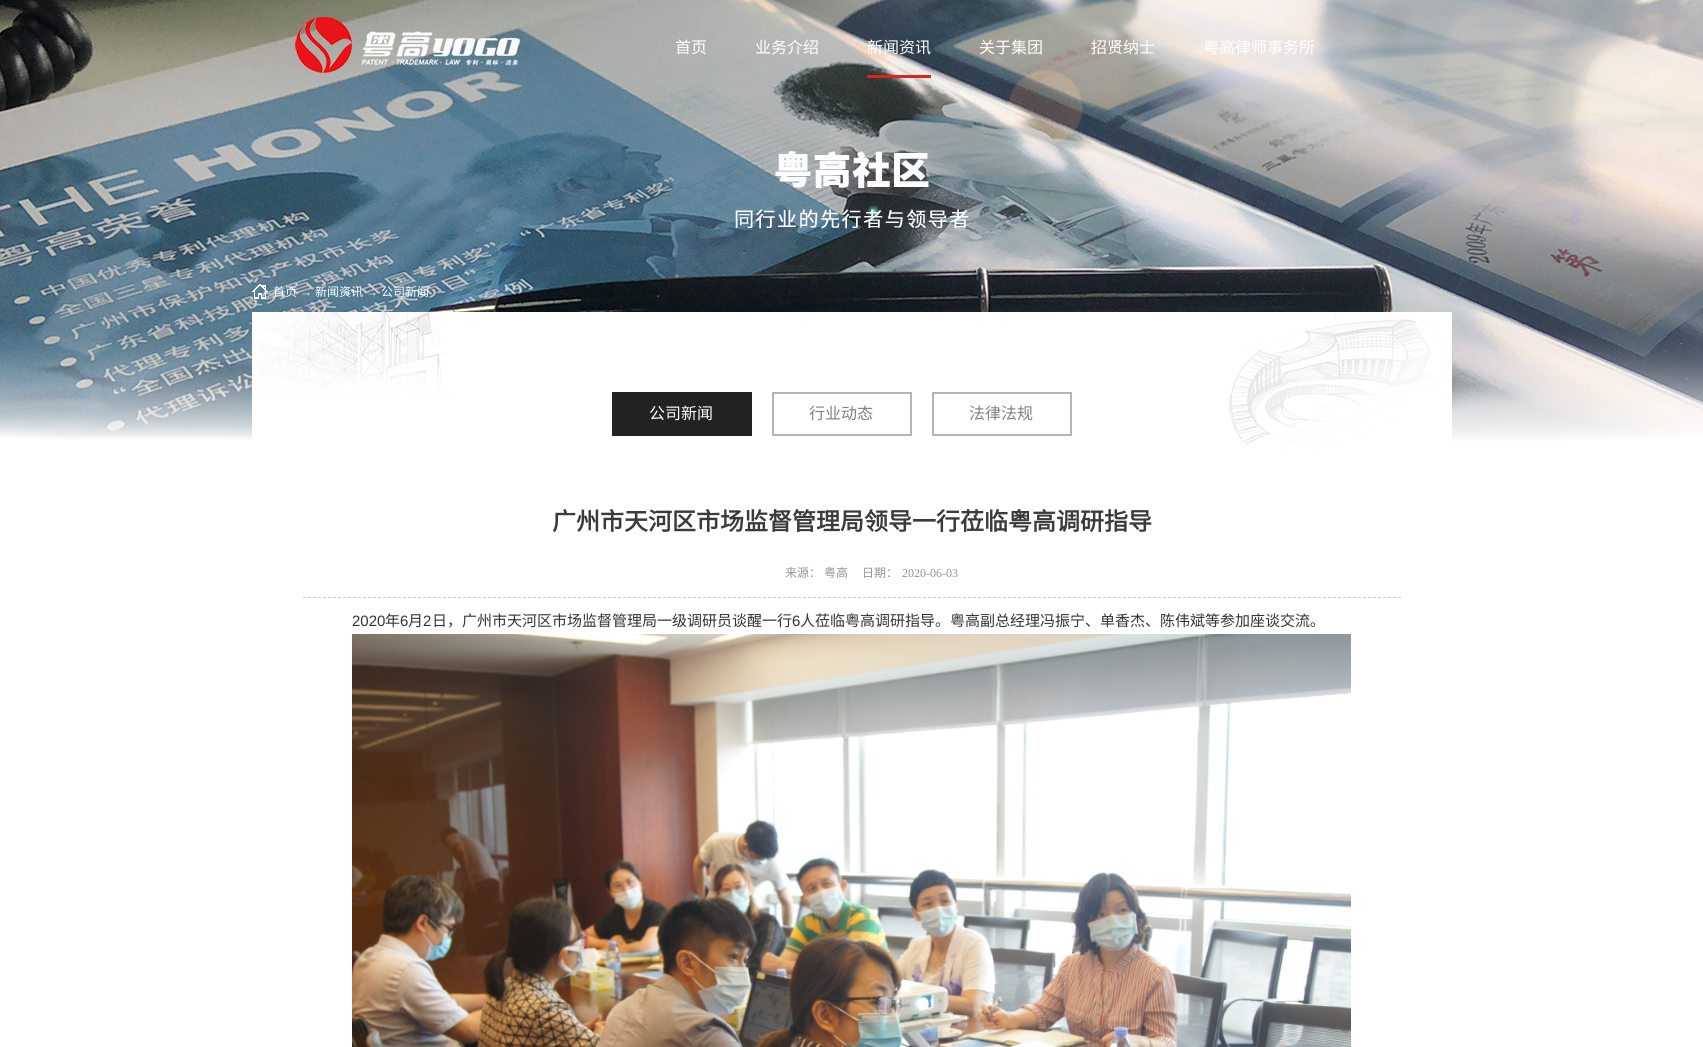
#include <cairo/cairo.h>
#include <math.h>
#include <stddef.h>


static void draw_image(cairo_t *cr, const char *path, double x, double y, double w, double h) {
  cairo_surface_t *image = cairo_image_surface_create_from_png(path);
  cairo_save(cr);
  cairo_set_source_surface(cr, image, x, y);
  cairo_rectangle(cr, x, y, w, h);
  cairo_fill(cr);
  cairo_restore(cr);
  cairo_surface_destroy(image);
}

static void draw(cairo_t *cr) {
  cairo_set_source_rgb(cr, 1, 1, 1);
  cairo_paint(cr);
  draw_image(cr, "images/1.png", 0, 0, 1703, 442);
  draw_image(cr, "images/2.png", 295, 17, 225, 56);
  cairo_set_source_rgb(cr, 218 / 255.0, 37 / 255.0, 28 / 255.0);
  cairo_rectangle(cr, 867, 75, 64, 3);
  cairo_fill(cr);
  draw_image(cr, "images/3.png", 252, 284, 16, 15);
  draw_image(cr, "images/4.png", 252, 312, 1200, 142);
  cairo_set_source_rgb(cr, 34 / 255.0, 34 / 255.0, 34 / 255.0);
  cairo_rectangle(cr, 612, 392, 140, 44);
  cairo_fill(cr);
  cairo_rectangle(cr, 773, 393, 138, 42);
  cairo_set_source_rgb(cr, 181 / 255.0, 181 / 255.0, 181 / 255.0);
  cairo_stroke(cr);
  cairo_rectangle(cr, 933, 393, 138, 42);
  cairo_stroke(cr);
  cairo_new_path(cr);
  cairo_move_to(cr, 303, 597.5);
  cairo_line_to(cr, 1401, 597.5);
  cairo_set_source_rgb(cr, 204 / 255.0, 204 / 255.0, 204 / 255.0);
  cairo_set_line_width(cr, 1);
  cairo_set_dash(cr, (double[]){3, 2}, 2, 0);
  cairo_stroke(cr);
  draw_image(cr, "images/5.png", 352, 634, 999, 413);
  cairo_select_font_face(cr, "Noto Sans CJK SC", CAIRO_FONT_SLANT_NORMAL, CAIRO_FONT_WEIGHT_NORMAL);
  cairo_set_font_size(cr, 16);
  cairo_set_source_rgb(cr, 1, 1, 1);
  cairo_move_to(cr, 675, 53);
  cairo_show_text(cr, "首页");
  cairo_move_to(cr, 755, 53);
  cairo_show_text(cr, "业务介绍");
  cairo_move_to(cr, 867, 53);
  cairo_show_text(cr, "新闻资讯");
  cairo_move_to(cr, 979, 53);
  cairo_show_text(cr, "关于集团");
  cairo_move_to(cr, 1091, 53);
  cairo_show_text(cr, "招贤纳士");
  cairo_move_to(cr, 1203, 53);
  cairo_show_text(cr, "粤高律师事务所");
  cairo_set_font_size(cr, 12);
  cairo_move_to(cr, 273, 296);
  cairo_show_text(cr, "首页");
  cairo_select_font_face(cr, "Liberation Serif", CAIRO_FONT_SLANT_NORMAL, CAIRO_FONT_WEIGHT_NORMAL);
  cairo_move_to(cr, 300, 296);
  cairo_show_text(cr, "→");
  cairo_select_font_face(cr, "Noto Sans CJK SC", CAIRO_FONT_SLANT_NORMAL, CAIRO_FONT_WEIGHT_NORMAL);
  cairo_move_to(cr, 315, 296);
  cairo_show_text(cr, "新闻资讯");
  cairo_select_font_face(cr, "Liberation Serif", CAIRO_FONT_SLANT_NORMAL, CAIRO_FONT_WEIGHT_NORMAL);
  cairo_move_to(cr, 366, 296);
  cairo_show_text(cr, "→");
  cairo_select_font_face(cr, "Noto Sans CJK SC", CAIRO_FONT_SLANT_NORMAL, CAIRO_FONT_WEIGHT_NORMAL);
  cairo_move_to(cr, 381, 296);
  cairo_show_text(cr, "公司新闻");
  cairo_set_font_size(cr, 16);
  cairo_move_to(cr, 649, 419);
  cairo_show_text(cr, "公司新闻");
  cairo_set_source_rgb(cr, 129 / 255.0, 129 / 255.0, 129 / 255.0);
  cairo_move_to(cr, 809, 419);
  cairo_show_text(cr, "行业动态");
  cairo_move_to(cr, 969, 419);
  cairo_show_text(cr, "法律法规");
  cairo_select_font_face(cr, "Noto Sans CJK SC", CAIRO_FONT_SLANT_NORMAL, CAIRO_FONT_WEIGHT_BOLD);
  cairo_set_font_size(cr, 24);
  cairo_set_source_rgb(cr, 59 / 255.0, 59 / 255.0, 59 / 255.0);
  cairo_move_to(cr, 552, 530);
  cairo_show_text(cr, "广州市天河区市场监督管理局领导一行莅临粤高调研指导");
  cairo_select_font_face(cr, "Noto Sans CJK SC", CAIRO_FONT_SLANT_NORMAL, CAIRO_FONT_WEIGHT_NORMAL);
  cairo_set_font_size(cr, 12);
  cairo_set_source_rgb(cr, 149 / 255.0, 149 / 255.0, 149 / 255.0);
  cairo_move_to(cr, 785, 577);
  cairo_show_text(cr, "来源：");
  cairo_move_to(cr, 824, 577);
  cairo_show_text(cr, "粤高");
  cairo_move_to(cr, 862, 577);
  cairo_show_text(cr, "日期：");
  cairo_select_font_face(cr, "Liberation Serif", CAIRO_FONT_SLANT_NORMAL, CAIRO_FONT_WEIGHT_NORMAL);
  cairo_move_to(cr, 902, 577);
  cairo_show_text(cr, "2020-06-03");
  cairo_select_font_face(cr, "Liberation Sans", CAIRO_FONT_SLANT_NORMAL, CAIRO_FONT_WEIGHT_NORMAL);
  cairo_set_font_size(cr, 15);
  cairo_set_source_rgb(cr, 51 / 255.0, 51 / 255.0, 51 / 255.0);
  cairo_move_to(cr, 352, 626);
  cairo_show_text(cr, "2020");
  cairo_select_font_face(cr, "Noto Sans CJK SC", CAIRO_FONT_SLANT_NORMAL, CAIRO_FONT_WEIGHT_NORMAL);
  cairo_move_to(cr, 385, 626);
  cairo_show_text(cr, "年");
  cairo_select_font_face(cr, "Liberation Sans", CAIRO_FONT_SLANT_NORMAL, CAIRO_FONT_WEIGHT_NORMAL);
  cairo_move_to(cr, 400, 626);
  cairo_show_text(cr, "6");
  cairo_select_font_face(cr, "Noto Sans CJK SC", CAIRO_FONT_SLANT_NORMAL, CAIRO_FONT_WEIGHT_NORMAL);
  cairo_move_to(cr, 408, 626);
  cairo_show_text(cr, "月");
  cairo_select_font_face(cr, "Liberation Sans", CAIRO_FONT_SLANT_NORMAL, CAIRO_FONT_WEIGHT_NORMAL);
  cairo_move_to(cr, 423, 626);
  cairo_show_text(cr, "2");
  cairo_select_font_face(cr, "Noto Sans CJK SC", CAIRO_FONT_SLANT_NORMAL, CAIRO_FONT_WEIGHT_NORMAL);
  cairo_move_to(cr, 432, 626);
  cairo_show_text(cr, "日，广州市天河区市场监督管理局一级调研员谈醒一行");
  cairo_select_font_face(cr, "Liberation Sans", CAIRO_FONT_SLANT_NORMAL, CAIRO_FONT_WEIGHT_NORMAL);
  cairo_move_to(cr, 792, 626);
  cairo_show_text(cr, "6");
  cairo_select_font_face(cr, "Noto Sans CJK SC", CAIRO_FONT_SLANT_NORMAL, CAIRO_FONT_WEIGHT_NORMAL);
  cairo_move_to(cr, 800, 626);
  cairo_show_text(cr, "人莅临粤高调研指导。粤高副总经理冯振宁、单香杰、陈伟斌等参加座谈交流。");
}

int main(void) {
  cairo_surface_t *surface = cairo_image_surface_create(CAIRO_FORMAT_RGB24, 1703, 1047);
  cairo_t *cr = cairo_create(surface);
  cairo_font_options_t *options = cairo_font_options_create();
  cairo_font_options_set_hint_metrics(options, CAIRO_HINT_METRICS_OFF);
  cairo_font_options_set_hint_style(options, CAIRO_HINT_STYLE_NONE);
  cairo_set_font_options(cr, options);
  cairo_set_miter_limit(cr, 4);
  draw(cr);
  cairo_surface_write_to_png(surface, "out.png");
  cairo_font_options_destroy(options);
  cairo_destroy(cr);
  cairo_surface_destroy(surface);
  return 0;
}
